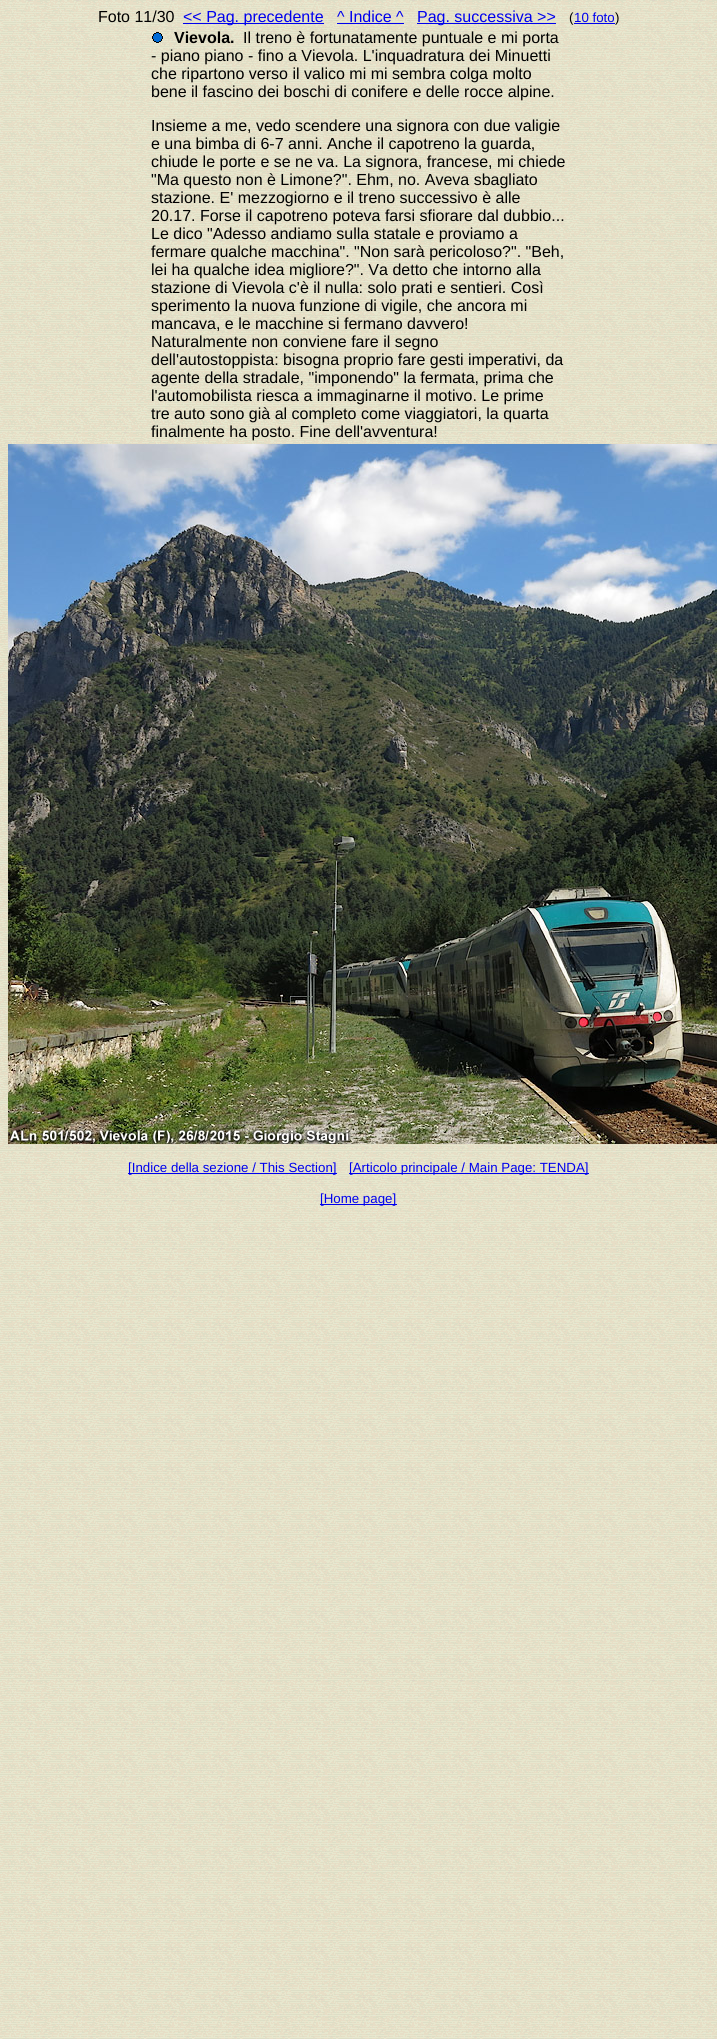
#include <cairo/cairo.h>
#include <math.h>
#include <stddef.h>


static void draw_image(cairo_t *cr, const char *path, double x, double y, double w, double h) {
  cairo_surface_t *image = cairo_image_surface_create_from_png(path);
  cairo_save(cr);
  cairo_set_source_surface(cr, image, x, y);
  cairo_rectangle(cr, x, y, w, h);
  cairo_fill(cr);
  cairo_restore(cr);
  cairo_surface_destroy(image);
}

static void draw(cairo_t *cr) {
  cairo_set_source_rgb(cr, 1, 1, 1);
  cairo_paint(cr);
  draw_image(cr, "images/1.png", 0, 0, 717, 2039);
  cairo_set_source_rgb(cr, 0, 0, 238 / 255.0);
  cairo_rectangle(cr, 183, 23, 141, 1);
  cairo_fill(cr);
  cairo_rectangle(cr, 337, 23, 67, 1);
  cairo_fill(cr);
  cairo_rectangle(cr, 417, 23, 139, 1);
  cairo_fill(cr);
  cairo_rectangle(cr, 574, 23, 41, 1);
  cairo_fill(cr);
  draw_image(cr, "images/2.png", 152, 32, 11, 11);
  draw_image(cr, "images/3.png", 8, 444, 709, 700);
  cairo_rectangle(cr, 128, 1173, 209, 1);
  cairo_fill(cr);
  cairo_rectangle(cr, 349, 1173, 240, 1);
  cairo_fill(cr);
  cairo_rectangle(cr, 320, 1204, 77, 1);
  cairo_fill(cr);
  cairo_select_font_face(cr, "Liberation Sans", CAIRO_FONT_SLANT_NORMAL, CAIRO_FONT_WEIGHT_NORMAL);
  cairo_set_font_size(cr, 16);
  cairo_set_source_rgb(cr, 0, 0, 0);
  cairo_move_to(cr, 98, 22);
  cairo_show_text(cr, "Foto 11/30");
  cairo_set_source_rgb(cr, 0, 0, 238 / 255.0);
  cairo_move_to(cr, 183, 22);
  cairo_show_text(cr, "<< Pag. precedente");
  cairo_move_to(cr, 337, 22);
  cairo_show_text(cr, "^ Indice ^");
  cairo_move_to(cr, 417, 22);
  cairo_show_text(cr, "Pag. successiva >>");
  cairo_set_font_size(cr, 13.3);
  cairo_set_source_rgb(cr, 0, 0, 0);
  cairo_move_to(cr, 569, 22);
  cairo_show_text(cr, "(");
  cairo_set_source_rgb(cr, 0, 0, 238 / 255.0);
  cairo_move_to(cr, 574, 22);
  cairo_show_text(cr, "10 foto");
  cairo_set_source_rgb(cr, 0, 0, 0);
  cairo_move_to(cr, 615, 22);
  cairo_show_text(cr, ")");
  cairo_select_font_face(cr, "Liberation Sans", CAIRO_FONT_SLANT_NORMAL, CAIRO_FONT_WEIGHT_BOLD);
  cairo_set_font_size(cr, 16);
  cairo_move_to(cr, 174, 43);
  cairo_show_text(cr, "Vievola.");
  cairo_select_font_face(cr, "Liberation Sans", CAIRO_FONT_SLANT_NORMAL, CAIRO_FONT_WEIGHT_NORMAL);
  cairo_move_to(cr, 243, 43);
  cairo_show_text(cr, "Il treno è fortunatamente puntuale e mi porta");
  cairo_move_to(cr, 151, 61);
  cairo_show_text(cr, "- piano piano - fino a Vievola. L'inquadratura dei Minuetti");
  cairo_move_to(cr, 151, 79);
  cairo_show_text(cr, "che ripartono verso il valico mi mi sembra colga molto");
  cairo_move_to(cr, 151, 97);
  cairo_show_text(cr, "bene il fascino dei boschi di conifere e delle rocce alpine.");
  cairo_move_to(cr, 151, 131);
  cairo_show_text(cr, "Insieme a me, vedo scendere una signora con due valigie");
  cairo_move_to(cr, 151, 149);
  cairo_show_text(cr, "e una bimba di 6-7 anni. Anche il capotreno la guarda,");
  cairo_move_to(cr, 151, 167);
  cairo_show_text(cr, "chiude le porte e se ne va. La signora, francese, mi chiede");
  cairo_move_to(cr, 151, 185);
  cairo_show_text(cr, "\"Ma questo non è Limone?\". Ehm, no. Aveva sbagliato");
  cairo_move_to(cr, 151, 203);
  cairo_show_text(cr, "stazione. E' mezzogiorno e il treno successivo è alle");
  cairo_move_to(cr, 151, 221);
  cairo_show_text(cr, "20.17. Forse il capotreno poteva farsi sfiorare dal dubbio...");
  cairo_move_to(cr, 151, 239);
  cairo_show_text(cr, "Le dico \"Adesso andiamo sulla statale e proviamo a");
  cairo_move_to(cr, 151, 257);
  cairo_show_text(cr, "fermare qualche macchina\". \"Non sarà pericoloso?\". \"Beh,");
  cairo_move_to(cr, 151, 275);
  cairo_show_text(cr, "lei ha qualche idea migliore?\". Va detto che intorno alla");
  cairo_move_to(cr, 151, 293);
  cairo_show_text(cr, "stazione di Vievola c'è il nulla: solo prati e sentieri. Così");
  cairo_move_to(cr, 151, 311);
  cairo_show_text(cr, "sperimento la nuova funzione di vigile, che ancora mi");
  cairo_move_to(cr, 151, 329);
  cairo_show_text(cr, "mancava, e le macchine si fermano davvero!");
  cairo_move_to(cr, 151, 347);
  cairo_show_text(cr, "Naturalmente non conviene fare il segno");
  cairo_move_to(cr, 151, 365);
  cairo_show_text(cr, "dell'autostoppista: bisogna proprio fare gesti imperativi, da");
  cairo_move_to(cr, 151, 383);
  cairo_show_text(cr, "agente della stradale, \"imponendo\" la fermata, prima che");
  cairo_move_to(cr, 151, 401);
  cairo_show_text(cr, "l'automobilista riesca a immaginarne il motivo. Le prime");
  cairo_move_to(cr, 151, 419);
  cairo_show_text(cr, "tre auto sono già al completo come viaggiatori, la quarta");
  cairo_move_to(cr, 151, 437);
  cairo_show_text(cr, "finalmente ha posto. Fine dell'avventura!");
  cairo_set_font_size(cr, 13.3);
  cairo_set_source_rgb(cr, 0, 0, 238 / 255.0);
  cairo_move_to(cr, 128, 1172);
  cairo_show_text(cr, "[Indice della sezione / This Section]");
  cairo_move_to(cr, 349, 1172);
  cairo_show_text(cr, "[Articolo principale / Main Page: TENDA]");
  cairo_move_to(cr, 320, 1203);
  cairo_show_text(cr, "[Home page]");
}

int main(void) {
  cairo_surface_t *surface = cairo_image_surface_create(CAIRO_FORMAT_RGB24, 717, 2039);
  cairo_t *cr = cairo_create(surface);
  cairo_font_options_t *options = cairo_font_options_create();
  cairo_font_options_set_hint_metrics(options, CAIRO_HINT_METRICS_OFF);
  cairo_font_options_set_hint_style(options, CAIRO_HINT_STYLE_NONE);
  cairo_set_font_options(cr, options);
  cairo_set_miter_limit(cr, 4);
  draw(cr);
  cairo_surface_write_to_png(surface, "out.png");
  cairo_font_options_destroy(options);
  cairo_destroy(cr);
  cairo_surface_destroy(surface);
  return 0;
}
